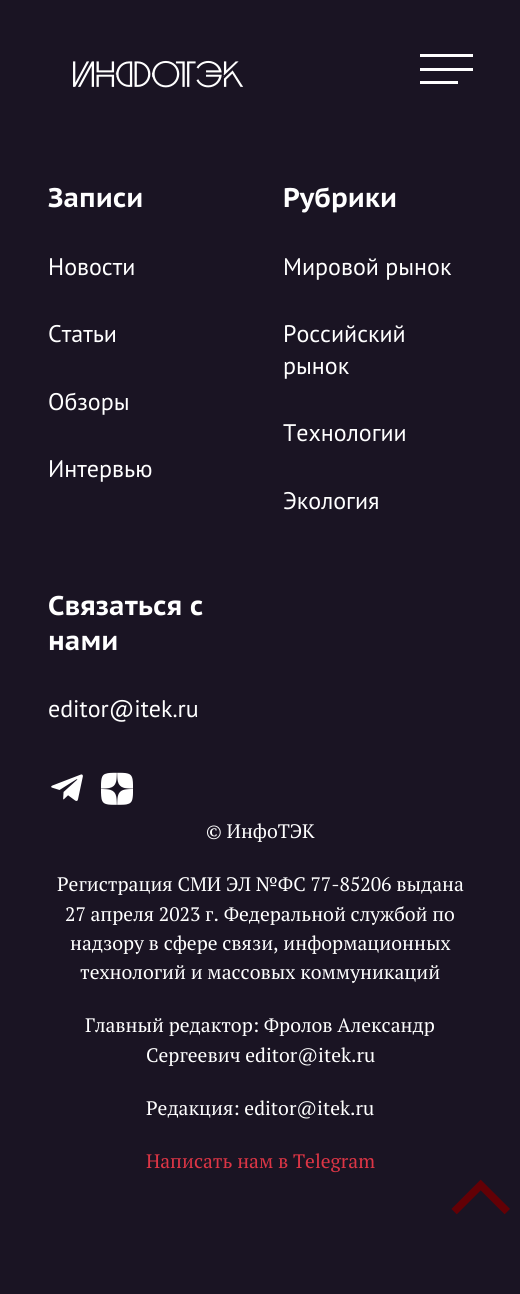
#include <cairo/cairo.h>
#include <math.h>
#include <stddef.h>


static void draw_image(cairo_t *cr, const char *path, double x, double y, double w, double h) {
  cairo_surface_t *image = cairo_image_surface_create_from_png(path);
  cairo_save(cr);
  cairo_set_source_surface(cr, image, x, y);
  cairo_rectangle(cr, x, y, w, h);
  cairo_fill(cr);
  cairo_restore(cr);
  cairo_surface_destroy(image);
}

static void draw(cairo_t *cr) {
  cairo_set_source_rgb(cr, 26 / 255.0, 20 / 255.0, 35 / 255.0);
  cairo_paint(cr);
  draw_image(cr, "images/1.png", 73, 60, 171, 28);
  cairo_set_source_rgb(cr, 1, 1, 1);
  cairo_rectangle(cr, 420, 54, 53, 3);
  cairo_fill(cr);
  cairo_rectangle(cr, 420, 68, 53, 3);
  cairo_fill(cr);
  cairo_rectangle(cr, 420, 81, 38, 3);
  cairo_fill(cr);
  cairo_select_font_face(cr, "PT Sans Caption", CAIRO_FONT_SLANT_NORMAL, CAIRO_FONT_WEIGHT_BOLD);
  cairo_set_font_size(cr, 27);
  cairo_move_to(cr, 48, 207);
  cairo_show_text(cr, "Записи");
  cairo_select_font_face(cr, "PT Sans", CAIRO_FONT_SLANT_NORMAL, CAIRO_FONT_WEIGHT_NORMAL);
  cairo_set_font_size(cr, 24);
  cairo_move_to(cr, 48, 275);
  cairo_show_text(cr, "Новости");
  cairo_move_to(cr, 48, 342);
  cairo_show_text(cr, "Статьи");
  cairo_move_to(cr, 48, 410);
  cairo_show_text(cr, "Обзоры");
  cairo_move_to(cr, 48, 477);
  cairo_show_text(cr, "Интервью");
  cairo_select_font_face(cr, "PT Sans Caption", CAIRO_FONT_SLANT_NORMAL, CAIRO_FONT_WEIGHT_BOLD);
  cairo_set_font_size(cr, 27);
  cairo_move_to(cr, 283, 207);
  cairo_show_text(cr, "Рубрики");
  cairo_select_font_face(cr, "PT Sans", CAIRO_FONT_SLANT_NORMAL, CAIRO_FONT_WEIGHT_NORMAL);
  cairo_set_font_size(cr, 24);
  cairo_move_to(cr, 283, 275);
  cairo_show_text(cr, "Мировой рынок");
  cairo_move_to(cr, 283, 342);
  cairo_show_text(cr, "Российский");
  cairo_move_to(cr, 283, 374);
  cairo_show_text(cr, "рынок");
  cairo_move_to(cr, 283, 441);
  cairo_show_text(cr, "Технологии");
  cairo_move_to(cr, 283, 509);
  cairo_show_text(cr, "Экология");
  cairo_select_font_face(cr, "PT Sans Caption", CAIRO_FONT_SLANT_NORMAL, CAIRO_FONT_WEIGHT_BOLD);
  cairo_set_font_size(cr, 27);
  cairo_move_to(cr, 48, 615);
  cairo_show_text(cr, "Связаться с");
  cairo_move_to(cr, 48, 650);
  cairo_show_text(cr, "нами");
  cairo_select_font_face(cr, "PT Sans", CAIRO_FONT_SLANT_NORMAL, CAIRO_FONT_WEIGHT_NORMAL);
  cairo_set_font_size(cr, 24);
  cairo_move_to(cr, 48, 717);
  cairo_show_text(cr, "editor@itek.ru");
  cairo_select_font_face(cr, "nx", CAIRO_FONT_SLANT_NORMAL, CAIRO_FONT_WEIGHT_NORMAL);
  cairo_set_font_size(cr, 38);
  cairo_move_to(cr, 48, 801);
  cairo_show_text(cr, "T");
  cairo_set_font_size(cr, 32);
  cairo_move_to(cr, 101, 800);
  cairo_show_text(cr, "Z");
  cairo_select_font_face(cr, "PT Serif", CAIRO_FONT_SLANT_NORMAL, CAIRO_FONT_WEIGHT_NORMAL);
  cairo_set_font_size(cr, 19.5);
  cairo_move_to(cr, 206, 838);
  cairo_show_text(cr, "© ИнфоТЭК");
  cairo_move_to(cr, 57, 891);
  cairo_show_text(cr, "Регистрация СМИ ЭЛ №ФС 77-85206 выдана");
  cairo_move_to(cr, 65, 921);
  cairo_show_text(cr, "27 апреля 2023 г. Федеральной службой по");
  cairo_move_to(cr, 70, 950);
  cairo_show_text(cr, "надзору в сфере связи, информационных");
  cairo_move_to(cr, 80, 979);
  cairo_show_text(cr, "технологий и массовых коммуникаций");
  cairo_move_to(cr, 85, 1032);
  cairo_show_text(cr, "Главный редактор: Фролов Александр");
  cairo_move_to(cr, 146, 1062);
  cairo_show_text(cr, "Сергеевич editor@itek.ru");
  cairo_move_to(cr, 146, 1115);
  cairo_show_text(cr, "Редакция: editor@itek.ru");
  cairo_set_source_rgb(cr, 220 / 255.0, 53 / 255.0, 69 / 255.0);
  cairo_move_to(cr, 146, 1168);
  cairo_show_text(cr, "Написать нам в Telegram");
  cairo_select_font_face(cr, "nx", CAIRO_FONT_SLANT_NORMAL, CAIRO_FONT_WEIGHT_NORMAL);
  cairo_set_font_size(cr, 38);
  cairo_set_source_rgb(cr, 99 / 255.0, 0, 5 / 255.0);
  cairo_save(cr);
  cairo_translate(cr, 510, 1182);
  cairo_rotate(cr, 180 * M_PI / 180);
  cairo_move_to(cr, 0, 0);
  cairo_show_text(cr, "с");
  cairo_restore(cr);
}

int main(void) {
  cairo_surface_t *surface = cairo_image_surface_create(CAIRO_FORMAT_RGB24, 520, 1294);
  cairo_t *cr = cairo_create(surface);
  cairo_font_options_t *options = cairo_font_options_create();
  cairo_font_options_set_hint_metrics(options, CAIRO_HINT_METRICS_OFF);
  cairo_font_options_set_hint_style(options, CAIRO_HINT_STYLE_NONE);
  cairo_set_font_options(cr, options);
  cairo_set_miter_limit(cr, 4);
  draw(cr);
  cairo_surface_write_to_png(surface, "out.png");
  cairo_font_options_destroy(options);
  cairo_destroy(cr);
  cairo_surface_destroy(surface);
  return 0;
}
